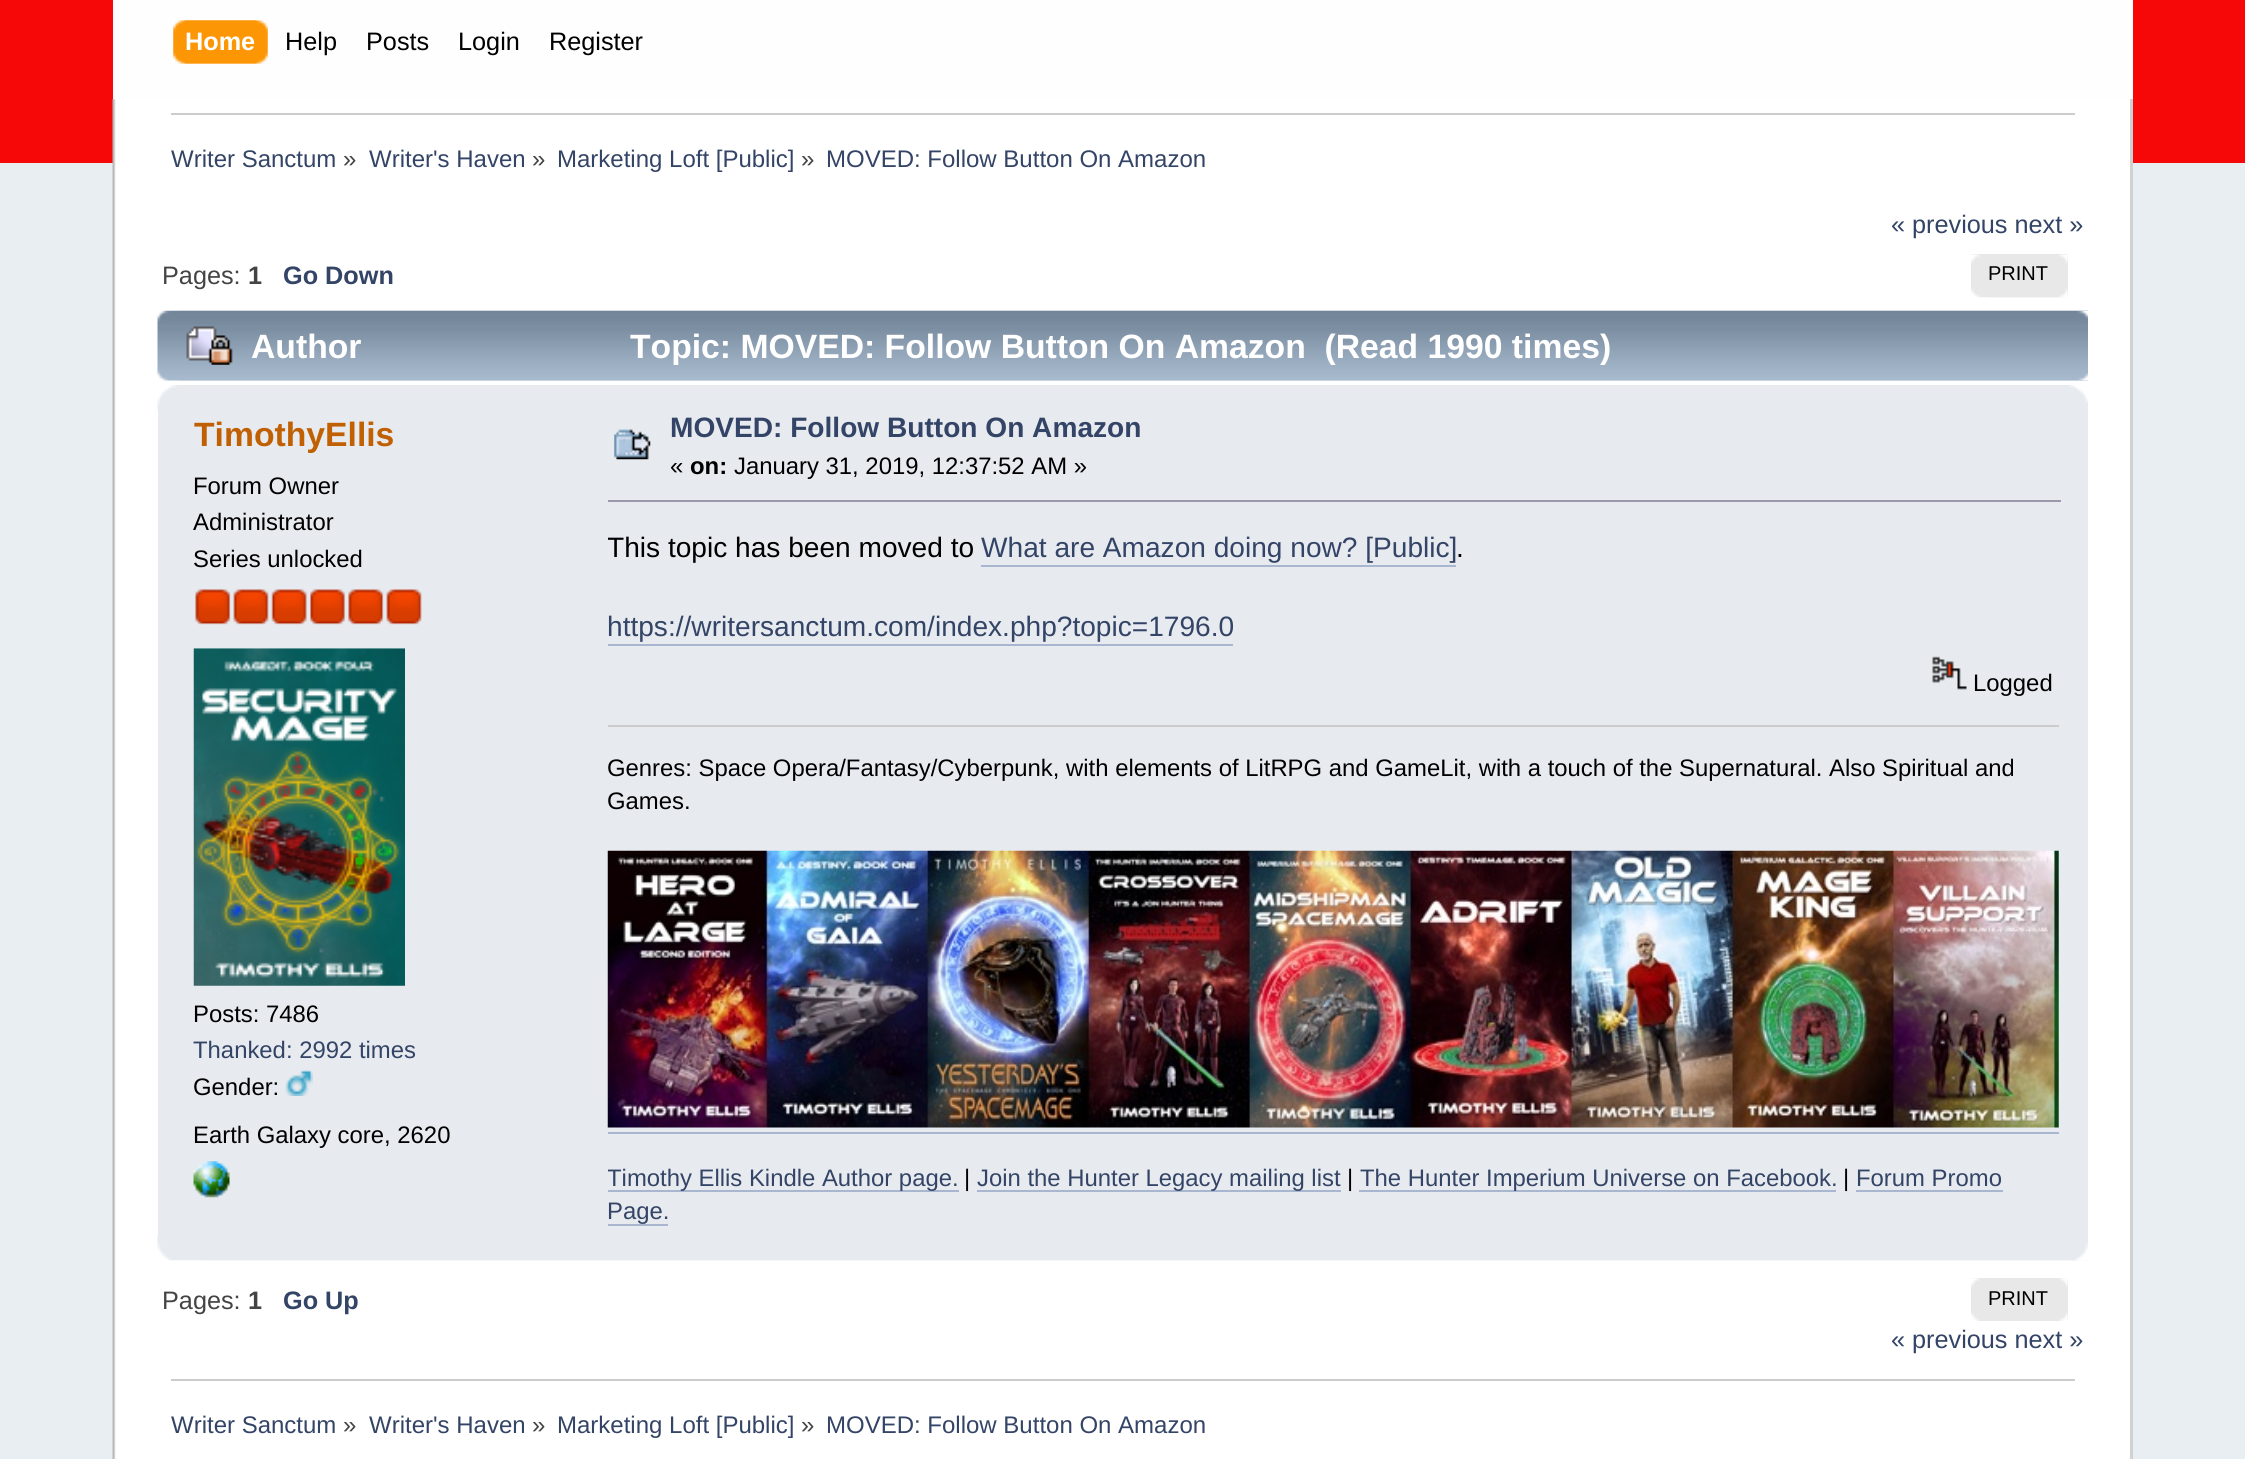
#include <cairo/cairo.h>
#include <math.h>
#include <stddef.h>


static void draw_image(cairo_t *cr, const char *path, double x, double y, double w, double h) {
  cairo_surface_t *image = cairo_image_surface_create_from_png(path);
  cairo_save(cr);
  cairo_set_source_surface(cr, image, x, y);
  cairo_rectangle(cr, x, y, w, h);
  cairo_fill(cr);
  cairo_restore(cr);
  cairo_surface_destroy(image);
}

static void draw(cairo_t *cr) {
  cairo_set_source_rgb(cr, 233 / 255.0, 238 / 255.0, 242 / 255.0);
  cairo_paint(cr);
  cairo_set_source_rgb(cr, 247 / 255.0, 8 / 255.0, 8 / 255.0);
  cairo_rectangle(cr, 0, 0, 2245, 163);
  cairo_fill(cr);
  cairo_set_source_rgb(cr, 254 / 255.0, 254 / 255.0, 254 / 255.0);
  cairo_rectangle(cr, 113, 0, 2020, 99);
  cairo_fill(cr);
  draw_image(cr, "images/1.png", 184, 20, 84, 44);
  draw_image(cr, "images/2.png", 173, 20, 84, 44);
  cairo_set_source_rgb(cr, 1, 1, 1);
  cairo_rectangle(cr, 113, 99, 2017, 1360);
  cairo_fill(cr);
  draw_image(cr, "images/3.png", 112, 99, 4, 1360);
  cairo_set_source_rgb(cr, 209 / 255.0, 209 / 255.0, 209 / 255.0);
  cairo_rectangle(cr, 2130, 99, 3, 1360);
  cairo_fill(cr);
  cairo_set_source_rgb(cr, 204 / 255.0, 204 / 255.0, 204 / 255.0);
  cairo_rectangle(cr, 171, 113, 1904, 2);
  cairo_fill(cr);
  cairo_set_source_rgb(cr, 232 / 255.0, 232 / 255.0, 232 / 255.0);
  cairo_rectangle(cr, 1971, 254, 97, 43);
  cairo_fill(cr);
  draw_image(cr, "images/4.png", 1971, 254, 96, 44);
  draw_image(cr, "images/5.png", 1989, 254, 79, 44);
  draw_image(cr, "images/6.png", 157, 310, 1931, 71);
  draw_image(cr, "images/7.png", 178, 310, 1910, 71);
  draw_image(cr, "images/8.png", 186, 326, 47, 39);
  cairo_set_source_rgb(cr, 231 / 255.0, 234 / 255.0, 239 / 255.0);
  cairo_rectangle(cr, 158, 385, 1930, 851);
  cairo_fill(cr);
  draw_image(cr, "images/9.png", 157, 385, 20, 25);
  draw_image(cr, "images/10.png", 2069, 385, 19, 18);
  draw_image(cr, "images/11.png", 195, 589, 36, 36);
  draw_image(cr, "images/12.png", 233, 589, 36, 36);
  draw_image(cr, "images/13.png", 271, 589, 36, 36);
  draw_image(cr, "images/14.png", 310, 589, 35, 36);
  draw_image(cr, "images/15.png", 348, 589, 36, 36);
  draw_image(cr, "images/12.png", 386, 589, 36, 36);
  draw_image(cr, "images/16.png", 193, 648, 212, 338);
  draw_image(cr, "images/17.png", 285, 1070, 28, 26);
  draw_image(cr, "images/18.png", 193, 1161, 37, 37);
  draw_image(cr, "images/19.png", 614, 429, 37, 31);
  cairo_set_source_rgb(cr, 153 / 255.0, 153 / 255.0, 170 / 255.0);
  cairo_rectangle(cr, 608, 500, 1453, 2);
  cairo_fill(cr);
  cairo_set_source_rgb(cr, 168 / 255.0, 182 / 255.0, 207 / 255.0);
  cairo_rectangle(cr, 981, 565, 475, 2);
  cairo_fill(cr);
  cairo_rectangle(cr, 608, 644, 625, 2);
  cairo_fill(cr);
  draw_image(cr, "images/20.png", 1932, 656, 35, 34);
  cairo_set_source_rgb(cr, 204 / 255.0, 204 / 255.0, 204 / 255.0);
  cairo_rectangle(cr, 608, 725, 1451, 2);
  cairo_fill(cr);
  draw_image(cr, "images/21.png", 607, 850, 1452, 278);
  cairo_set_source_rgb(cr, 168 / 255.0, 182 / 255.0, 207 / 255.0);
  cairo_rectangle(cr, 608, 1132, 1451, 2);
  cairo_fill(cr);
  cairo_rectangle(cr, 608, 1190, 351, 2);
  cairo_fill(cr);
  cairo_rectangle(cr, 977, 1190, 364, 2);
  cairo_fill(cr);
  cairo_rectangle(cr, 1359, 1190, 477, 2);
  cairo_fill(cr);
  cairo_rectangle(cr, 1856, 1190, 147, 2);
  cairo_fill(cr);
  cairo_rectangle(cr, 608, 1224, 60, 2);
  cairo_fill(cr);
  draw_image(cr, "images/22.png", 157, 1235, 1931, 26);
  draw_image(cr, "images/23.png", 203, 1243, 1885, 18);
  cairo_set_source_rgb(cr, 232 / 255.0, 232 / 255.0, 232 / 255.0);
  cairo_rectangle(cr, 1971, 1278, 97, 43);
  cairo_fill(cr);
  draw_image(cr, "images/24.png", 1971, 1278, 9, 43);
  draw_image(cr, "images/25.png", 2059, 1278, 9, 43);
  cairo_set_source_rgb(cr, 204 / 255.0, 204 / 255.0, 204 / 255.0);
  cairo_rectangle(cr, 171, 1379, 1904, 2);
  cairo_fill(cr);
  cairo_select_font_face(cr, "Liberation Sans", CAIRO_FONT_SLANT_NORMAL, CAIRO_FONT_WEIGHT_BOLD);
  cairo_set_font_size(cr, 25.25);
  cairo_set_source_rgb(cr, 1, 1, 1);
  cairo_move_to(cr, 185, 50);
  cairo_show_text(cr, "Home");
  cairo_select_font_face(cr, "Liberation Sans", CAIRO_FONT_SLANT_NORMAL, CAIRO_FONT_WEIGHT_NORMAL);
  cairo_set_source_rgb(cr, 0, 0, 0);
  cairo_move_to(cr, 285, 50);
  cairo_show_text(cr, "Help");
  cairo_move_to(cr, 366, 50);
  cairo_show_text(cr, "Posts");
  cairo_move_to(cr, 458, 50);
  cairo_show_text(cr, "Login");
  cairo_move_to(cr, 549, 50);
  cairo_show_text(cr, "Register");
  cairo_set_font_size(cr, 24);
  cairo_set_source_rgb(cr, 51 / 255.0, 68 / 255.0, 102 / 255.0);
  cairo_move_to(cr, 171, 167);
  cairo_show_text(cr, "Writer Sanctum");
  cairo_set_source_rgb(cr, 68 / 255.0, 68 / 255.0, 68 / 255.0);
  cairo_move_to(cr, 343, 167);
  cairo_show_text(cr, "»");
  cairo_set_source_rgb(cr, 51 / 255.0, 68 / 255.0, 102 / 255.0);
  cairo_move_to(cr, 369, 167);
  cairo_show_text(cr, "Writer's Haven");
  cairo_set_source_rgb(cr, 68 / 255.0, 68 / 255.0, 68 / 255.0);
  cairo_move_to(cr, 532, 167);
  cairo_show_text(cr, "»");
  cairo_set_source_rgb(cr, 51 / 255.0, 68 / 255.0, 102 / 255.0);
  cairo_move_to(cr, 557, 167);
  cairo_show_text(cr, "Marketing Loft [Public]");
  cairo_set_source_rgb(cr, 68 / 255.0, 68 / 255.0, 68 / 255.0);
  cairo_move_to(cr, 801, 167);
  cairo_show_text(cr, "»");
  cairo_set_source_rgb(cr, 51 / 255.0, 68 / 255.0, 102 / 255.0);
  cairo_move_to(cr, 826, 167);
  cairo_show_text(cr, "MOVED: Follow Button On Amazon");
  cairo_set_font_size(cr, 25.25);
  cairo_move_to(cr, 1891, 233);
  cairo_show_text(cr, "« previous next »");
  cairo_set_source_rgb(cr, 68 / 255.0, 68 / 255.0, 68 / 255.0);
  cairo_move_to(cr, 162, 284);
  cairo_show_text(cr, "Pages:");
  cairo_select_font_face(cr, "Liberation Sans", CAIRO_FONT_SLANT_NORMAL, CAIRO_FONT_WEIGHT_BOLD);
  cairo_move_to(cr, 248, 284);
  cairo_show_text(cr, "1");
  cairo_set_source_rgb(cr, 51 / 255.0, 68 / 255.0, 102 / 255.0);
  cairo_move_to(cr, 283, 284);
  cairo_show_text(cr, "Go Down");
  cairo_select_font_face(cr, "Liberation Sans", CAIRO_FONT_SLANT_NORMAL, CAIRO_FONT_WEIGHT_NORMAL);
  cairo_set_font_size(cr, 20);
  cairo_set_source_rgb(cr, 0, 0, 0);
  cairo_move_to(cr, 1988, 280);
  cairo_show_text(cr, "PRINT");
  cairo_select_font_face(cr, "Liberation Sans", CAIRO_FONT_SLANT_NORMAL, CAIRO_FONT_WEIGHT_BOLD);
  cairo_set_font_size(cr, 33.7);
  cairo_set_source_rgb(cr, 1, 1, 1);
  cairo_move_to(cr, 251, 358);
  cairo_show_text(cr, "Author");
  cairo_move_to(cr, 630, 358);
  cairo_show_text(cr, "Topic: MOVED: Follow Button On Amazon  (Read 1990 times)");
  cairo_set_source_rgb(cr, 192 / 255.0, 96 / 255.0, 2 / 255.0);
  cairo_move_to(cr, 194, 446);
  cairo_show_text(cr, "TimothyEllis");
  cairo_select_font_face(cr, "Liberation Sans", CAIRO_FONT_SLANT_NORMAL, CAIRO_FONT_WEIGHT_NORMAL);
  cairo_set_font_size(cr, 23.87);
  cairo_set_source_rgb(cr, 0, 0, 0);
  cairo_move_to(cr, 193, 494);
  cairo_show_text(cr, "Forum Owner");
  cairo_move_to(cr, 193, 530);
  cairo_show_text(cr, "Administrator");
  cairo_move_to(cr, 193, 567);
  cairo_show_text(cr, "Series unlocked");
  cairo_move_to(cr, 193, 1022);
  cairo_show_text(cr, "Posts: 7486");
  cairo_set_source_rgb(cr, 51 / 255.0, 68 / 255.0, 102 / 255.0);
  cairo_move_to(cr, 193, 1058);
  cairo_show_text(cr, "Thanked: 2992 times");
  cairo_set_source_rgb(cr, 0, 0, 0);
  cairo_move_to(cr, 193, 1095);
  cairo_show_text(cr, "Gender:");
  cairo_move_to(cr, 193, 1143);
  cairo_show_text(cr, "Earth Galaxy core, 2620");
  cairo_select_font_face(cr, "Liberation Sans", CAIRO_FONT_SLANT_NORMAL, CAIRO_FONT_WEIGHT_BOLD);
  cairo_set_font_size(cr, 28.1);
  cairo_set_source_rgb(cr, 51 / 255.0, 68 / 255.0, 102 / 255.0);
  cairo_move_to(cr, 670, 437);
  cairo_show_text(cr, "MOVED: Follow Button On Amazon");
  cairo_select_font_face(cr, "Liberation Sans", CAIRO_FONT_SLANT_NORMAL, CAIRO_FONT_WEIGHT_NORMAL);
  cairo_set_font_size(cr, 23.87);
  cairo_set_source_rgb(cr, 0, 0, 0);
  cairo_move_to(cr, 670, 474);
  cairo_show_text(cr, "«");
  cairo_select_font_face(cr, "Liberation Sans", CAIRO_FONT_SLANT_NORMAL, CAIRO_FONT_WEIGHT_BOLD);
  cairo_move_to(cr, 690, 474);
  cairo_show_text(cr, "on:");
  cairo_select_font_face(cr, "Liberation Sans", CAIRO_FONT_SLANT_NORMAL, CAIRO_FONT_WEIGHT_NORMAL);
  cairo_move_to(cr, 734, 474);
  cairo_show_text(cr, "January 31, 2019, 12:37:52 AM »");
  cairo_save(cr);
  cairo_rectangle(cr, 608, 497, 1480, 158);
  cairo_clip(cr);
  cairo_set_font_size(cr, 28.1);
  cairo_move_to(cr, 607, 557);
  cairo_show_text(cr, "This topic has been moved to");
  cairo_restore(cr);
  cairo_set_font_size(cr, 28.1);
  cairo_set_source_rgb(cr, 51 / 255.0, 68 / 255.0, 102 / 255.0);
  cairo_move_to(cr, 981, 557);
  cairo_show_text(cr, "What are Amazon doing now? [Public]");
  cairo_set_source_rgb(cr, 0, 0, 0);
  cairo_move_to(cr, 1456, 557);
  cairo_show_text(cr, ".");
  cairo_set_source_rgb(cr, 51 / 255.0, 68 / 255.0, 102 / 255.0);
  cairo_move_to(cr, 607, 636);
  cairo_show_text(cr, "https://writersanctum.com/index.php?topic=1796.0");
  cairo_set_font_size(cr, 23.87);
  cairo_set_source_rgb(cr, 0, 0, 0);
  cairo_move_to(cr, 1973, 691);
  cairo_show_text(cr, "Logged");
  cairo_save(cr);
  cairo_rectangle(cr, 608, 727, 1451, 508);
  cairo_clip(cr);
  cairo_move_to(cr, 607, 776);
  cairo_show_text(cr, "Genres: Space Opera/Fantasy/Cyberpunk, with elements of LitRPG and GameLit, with a touch of the Supernatural. Also Spiritual and");
  cairo_move_to(cr, 607, 809);
  cairo_show_text(cr, "Games.");
  cairo_set_source_rgb(cr, 51 / 255.0, 68 / 255.0, 102 / 255.0);
  cairo_move_to(cr, 607, 1186);
  cairo_show_text(cr, "Timothy Ellis Kindle Author page.");
  cairo_restore(cr);
  cairo_move_to(cr, 964, 1186);
  cairo_show_text(cr, "|");
  cairo_set_source_rgb(cr, 51 / 255.0, 68 / 255.0, 102 / 255.0);
  cairo_move_to(cr, 977, 1186);
  cairo_show_text(cr, "Join the Hunter Legacy mailing list");
  cairo_set_source_rgb(cr, 0, 0, 0);
  cairo_move_to(cr, 1347, 1186);
  cairo_show_text(cr, "|");
  cairo_set_source_rgb(cr, 51 / 255.0, 68 / 255.0, 102 / 255.0);
  cairo_move_to(cr, 1360, 1186);
  cairo_show_text(cr, "The Hunter Imperium Universe on Facebook.");
  cairo_set_source_rgb(cr, 0, 0, 0);
  cairo_move_to(cr, 1843, 1186);
  cairo_show_text(cr, "|");
  cairo_set_source_rgb(cr, 51 / 255.0, 68 / 255.0, 102 / 255.0);
  cairo_move_to(cr, 1856, 1186);
  cairo_show_text(cr, "Forum Promo");
  cairo_move_to(cr, 607, 1219);
  cairo_show_text(cr, "Page.");
  cairo_set_font_size(cr, 25.25);
  cairo_set_source_rgb(cr, 68 / 255.0, 68 / 255.0, 68 / 255.0);
  cairo_move_to(cr, 162, 1309);
  cairo_show_text(cr, "Pages:");
  cairo_select_font_face(cr, "Liberation Sans", CAIRO_FONT_SLANT_NORMAL, CAIRO_FONT_WEIGHT_BOLD);
  cairo_move_to(cr, 248, 1309);
  cairo_show_text(cr, "1");
  cairo_set_source_rgb(cr, 51 / 255.0, 68 / 255.0, 102 / 255.0);
  cairo_move_to(cr, 283, 1309);
  cairo_show_text(cr, "Go Up");
  cairo_select_font_face(cr, "Liberation Sans", CAIRO_FONT_SLANT_NORMAL, CAIRO_FONT_WEIGHT_NORMAL);
  cairo_set_font_size(cr, 20);
  cairo_set_source_rgb(cr, 0, 0, 0);
  cairo_move_to(cr, 1988, 1305);
  cairo_show_text(cr, "PRINT");
  cairo_set_font_size(cr, 25.25);
  cairo_set_source_rgb(cr, 51 / 255.0, 68 / 255.0, 102 / 255.0);
  cairo_move_to(cr, 1891, 1348);
  cairo_show_text(cr, "« previous next »");
  cairo_set_font_size(cr, 24);
  cairo_move_to(cr, 171, 1433);
  cairo_show_text(cr, "Writer Sanctum");
  cairo_set_source_rgb(cr, 68 / 255.0, 68 / 255.0, 68 / 255.0);
  cairo_move_to(cr, 343, 1433);
  cairo_show_text(cr, "»");
  cairo_set_source_rgb(cr, 51 / 255.0, 68 / 255.0, 102 / 255.0);
  cairo_move_to(cr, 369, 1433);
  cairo_show_text(cr, "Writer's Haven");
  cairo_set_source_rgb(cr, 68 / 255.0, 68 / 255.0, 68 / 255.0);
  cairo_move_to(cr, 532, 1433);
  cairo_show_text(cr, "»");
  cairo_set_source_rgb(cr, 51 / 255.0, 68 / 255.0, 102 / 255.0);
  cairo_move_to(cr, 557, 1433);
  cairo_show_text(cr, "Marketing Loft [Public]");
  cairo_set_source_rgb(cr, 68 / 255.0, 68 / 255.0, 68 / 255.0);
  cairo_move_to(cr, 801, 1433);
  cairo_show_text(cr, "»");
  cairo_set_source_rgb(cr, 51 / 255.0, 68 / 255.0, 102 / 255.0);
  cairo_move_to(cr, 826, 1433);
  cairo_show_text(cr, "MOVED: Follow Button On Amazon");
}

int main(void) {
  cairo_surface_t *surface = cairo_image_surface_create(CAIRO_FORMAT_RGB24, 2245, 1459);
  cairo_t *cr = cairo_create(surface);
  cairo_font_options_t *options = cairo_font_options_create();
  cairo_font_options_set_hint_metrics(options, CAIRO_HINT_METRICS_OFF);
  cairo_font_options_set_hint_style(options, CAIRO_HINT_STYLE_NONE);
  cairo_set_font_options(cr, options);
  cairo_set_miter_limit(cr, 4);
  draw(cr);
  cairo_surface_write_to_png(surface, "out.png");
  cairo_font_options_destroy(options);
  cairo_destroy(cr);
  cairo_surface_destroy(surface);
  return 0;
}
